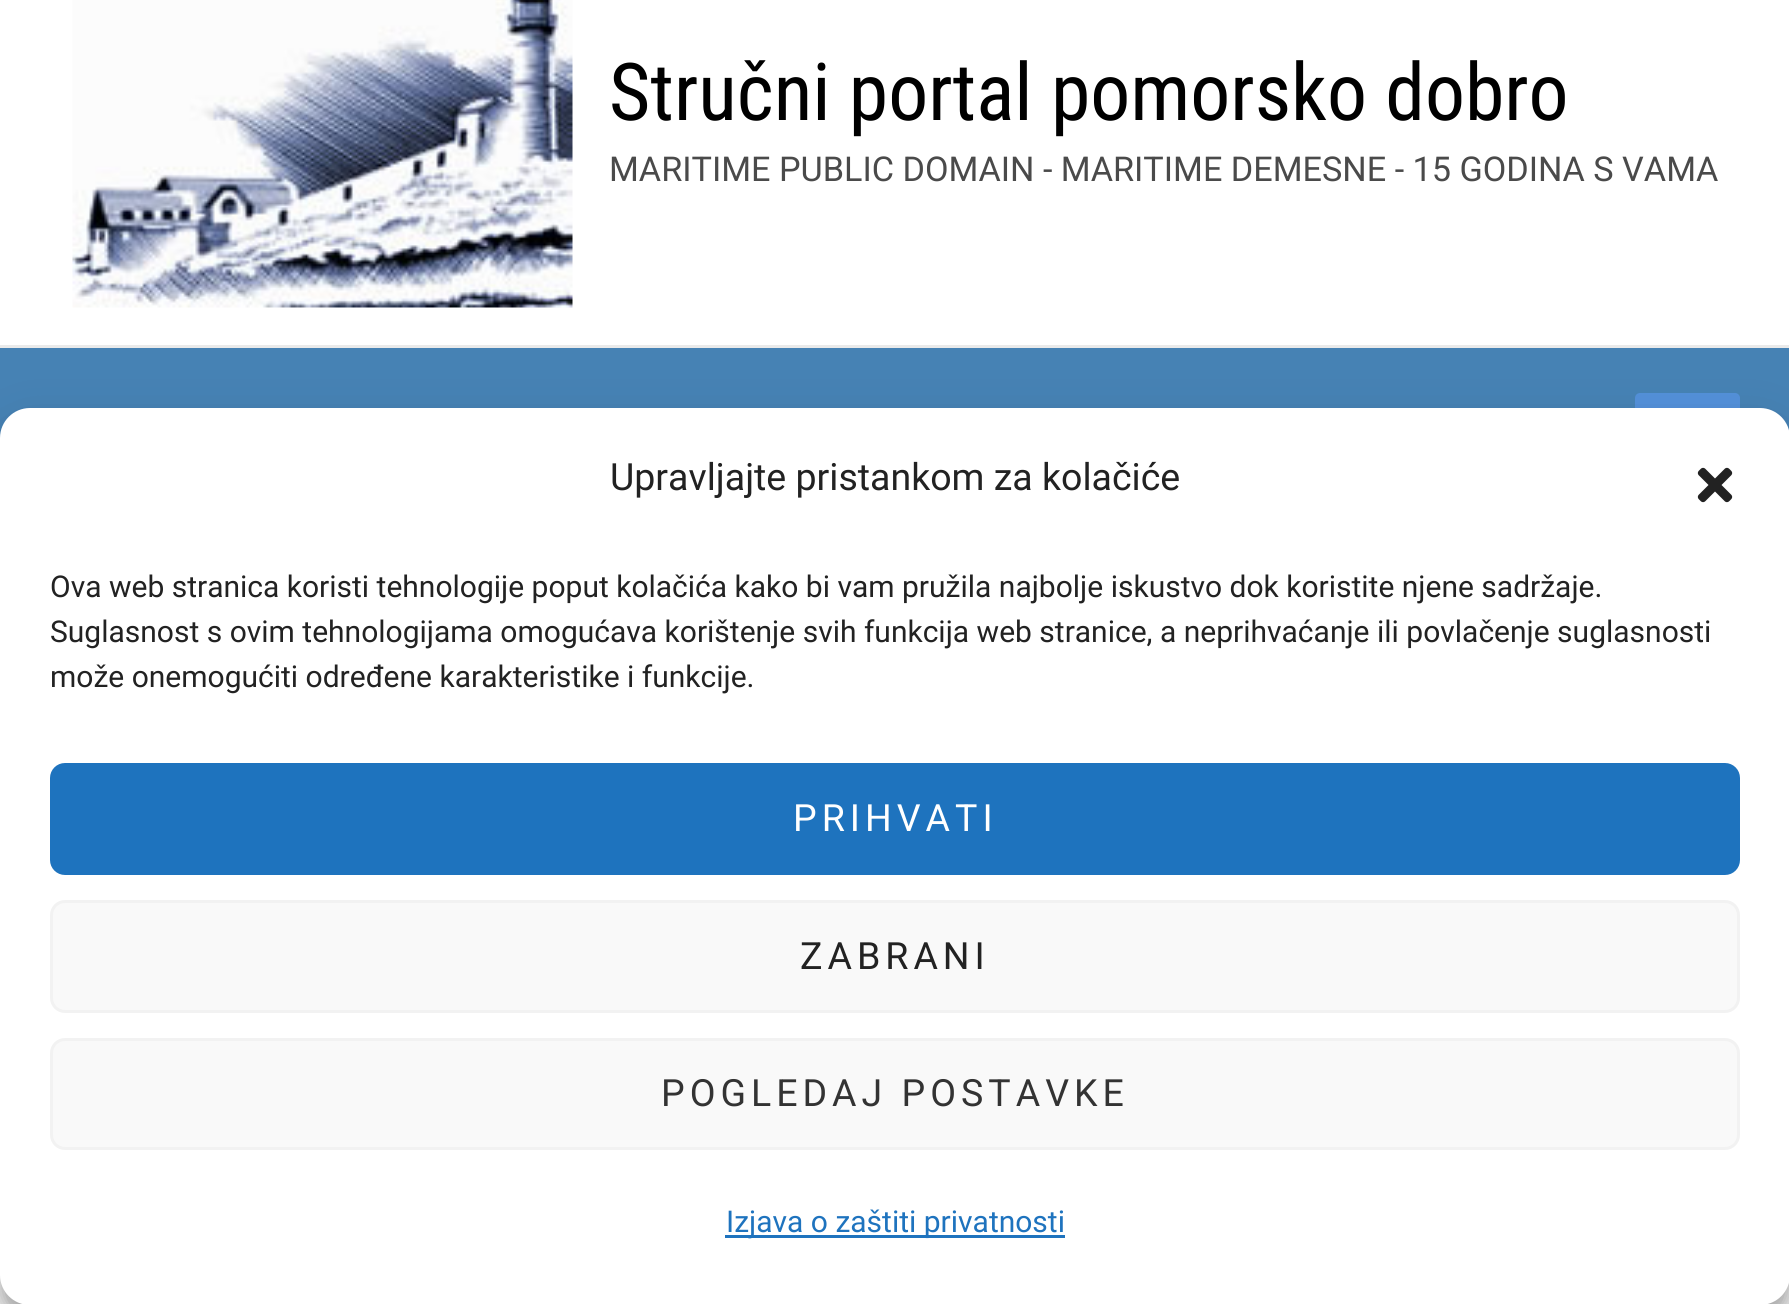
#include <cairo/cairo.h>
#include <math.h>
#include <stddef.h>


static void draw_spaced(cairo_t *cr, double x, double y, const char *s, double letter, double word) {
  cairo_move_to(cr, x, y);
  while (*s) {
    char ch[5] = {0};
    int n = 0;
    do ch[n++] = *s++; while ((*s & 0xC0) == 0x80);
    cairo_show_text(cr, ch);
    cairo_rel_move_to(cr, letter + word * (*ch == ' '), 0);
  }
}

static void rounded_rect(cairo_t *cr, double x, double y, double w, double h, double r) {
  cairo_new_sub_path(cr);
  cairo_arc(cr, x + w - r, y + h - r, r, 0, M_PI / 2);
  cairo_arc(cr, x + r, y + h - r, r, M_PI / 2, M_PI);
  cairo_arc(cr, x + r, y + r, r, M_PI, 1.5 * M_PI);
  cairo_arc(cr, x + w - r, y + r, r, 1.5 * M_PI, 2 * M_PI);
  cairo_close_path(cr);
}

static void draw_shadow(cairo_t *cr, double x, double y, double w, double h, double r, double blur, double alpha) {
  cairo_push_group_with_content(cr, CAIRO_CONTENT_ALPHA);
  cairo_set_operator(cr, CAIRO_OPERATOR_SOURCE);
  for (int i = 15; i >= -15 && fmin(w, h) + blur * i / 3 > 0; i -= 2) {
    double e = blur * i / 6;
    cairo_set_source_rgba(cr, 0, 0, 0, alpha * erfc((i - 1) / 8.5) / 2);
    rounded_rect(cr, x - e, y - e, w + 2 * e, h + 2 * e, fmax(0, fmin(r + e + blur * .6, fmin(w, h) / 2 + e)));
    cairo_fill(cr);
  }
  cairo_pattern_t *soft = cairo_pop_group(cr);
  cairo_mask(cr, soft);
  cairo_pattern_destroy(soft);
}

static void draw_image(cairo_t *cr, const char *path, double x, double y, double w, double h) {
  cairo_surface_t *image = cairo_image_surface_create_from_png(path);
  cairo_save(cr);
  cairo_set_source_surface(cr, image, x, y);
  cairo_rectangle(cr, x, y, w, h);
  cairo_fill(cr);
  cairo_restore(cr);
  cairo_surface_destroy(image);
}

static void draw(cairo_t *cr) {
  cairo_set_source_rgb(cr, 1, 1, 1);
  cairo_paint(cr);
  cairo_set_source_rgb(cr, 234 / 255.0, 234 / 255.0, 234 / 255.0);
  cairo_rectangle(cr, 0, 345, 1789, 3);
  cairo_fill(cr);
  draw_image(cr, "images/1.png", 72, 0, 501, 308);
  cairo_set_source_rgb(cr, 70 / 255.0, 130 / 255.0, 180 / 255.0);
  cairo_rectangle(cr, 0, 348, 1789, 90);
  cairo_fill(cr);
  cairo_set_source_rgb(cr, 83 / 255.0, 144 / 255.0, 217 / 255.0);
  rounded_rect(cr, 1635, 393, 105, 105, 5);
  cairo_fill(cr);
  cairo_set_source_rgb(cr, 0, 0, 0);
  draw_shadow(cr, 0, 423, 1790, 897, 30, 7.5, 0.23);
  draw_shadow(cr, 0, 433, 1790, 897, 30, 25, 0.19);
  cairo_set_source_rgb(cr, 1, 1, 1);
  rounded_rect(cr, 0, 408, 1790, 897, 30);
  cairo_fill(cr);
  draw_image(cr, "images/2.png", 1697, 467, 36, 36);
  cairo_set_source_rgb(cr, 30 / 255.0, 115 / 255.0, 190 / 255.0);
  rounded_rect(cr, 51.5, 764.5, 1687, 109, 13.5);
  cairo_fill_preserve(cr);
  cairo_set_line_width(cr, 3);
  cairo_stroke(cr);
  cairo_set_source_rgb(cr, 249 / 255.0, 249 / 255.0, 249 / 255.0);
  rounded_rect(cr, 51.5, 901.5, 1687, 110, 13.5);
  cairo_fill_preserve(cr);
  cairo_set_source_rgb(cr, 242 / 255.0, 242 / 255.0, 242 / 255.0);
  cairo_stroke(cr);
  cairo_set_source_rgb(cr, 249 / 255.0, 249 / 255.0, 249 / 255.0);
  rounded_rect(cr, 51.5, 1039.5, 1687, 109, 13.5);
  cairo_fill_preserve(cr);
  cairo_set_source_rgb(cr, 242 / 255.0, 242 / 255.0, 242 / 255.0);
  cairo_stroke(cr);
  cairo_set_source_rgb(cr, 30 / 255.0, 115 / 255.0, 190 / 255.0);
  cairo_rectangle(cr, 725, 1235, 340, 3);
  cairo_fill(cr);
  cairo_select_font_face(cr, "Roboto Condensed", CAIRO_FONT_SLANT_NORMAL, CAIRO_FONT_WEIGHT_NORMAL);
  cairo_set_font_size(cr, 79.75);
  cairo_set_source_rgb(cr, 0, 0, 0);
  cairo_move_to(cr, 609, 120);
  cairo_show_text(cr, "Stručni portal pomorsko dobro");
  cairo_select_font_face(cr, "Roboto", CAIRO_FONT_SLANT_NORMAL, CAIRO_FONT_WEIGHT_NORMAL);
  cairo_set_font_size(cr, 34.2);
  cairo_set_source_rgb(cr, 74 / 255.0, 74 / 255.0, 74 / 255.0);
  cairo_move_to(cr, 609, 181);
  cairo_show_text(cr, "MARITIME PUBLIC DOMAIN - MARITIME DEMESNE - 15 GODINA S VAMA");
  cairo_set_font_size(cr, 37.5);
  cairo_set_source_rgb(cr, 34 / 255.0, 34 / 255.0, 34 / 255.0);
  cairo_move_to(cr, 610, 490);
  cairo_show_text(cr, "Upravljajte pristankom za kolačiće");
  cairo_set_font_size(cr, 30);
  cairo_move_to(cr, 50, 597);
  cairo_show_text(cr, "Ova web stranica koristi tehnologije poput kolačića kako bi vam pružila najbolje iskustvo dok koristite njene sadržaje.");
  cairo_move_to(cr, 50, 642);
  cairo_show_text(cr, "Suglasnost s ovim tehnologijama omogućava korištenje svih funkcija web stranice, a neprihvaćanje ili povlačenje suglasnosti");
  cairo_move_to(cr, 50, 687);
  cairo_show_text(cr, "može onemogućiti određene karakteristike i funkcije.");
  cairo_set_font_size(cr, 37.5);
  cairo_set_source_rgb(cr, 1, 1, 1);
  draw_spaced(cr, 793, 831, "PRIHVATI", 5, 0);
  cairo_set_source_rgb(cr, 34 / 255.0, 34 / 255.0, 34 / 255.0);
  draw_spaced(cr, 800, 969, "ZABRANI", 5, 0);
  cairo_set_source_rgb(cr, 51 / 255.0, 51 / 255.0, 51 / 255.0);
  draw_spaced(cr, 661, 1106, "POGLEDAJ POSTAVKE", 5, 0);
  cairo_set_font_size(cr, 30);
  cairo_set_source_rgb(cr, 30 / 255.0, 115 / 255.0, 190 / 255.0);
  cairo_move_to(cr, 726, 1232);
  cairo_show_text(cr, "Izjava o zaštiti privatnosti");
}

int main(void) {
  cairo_surface_t *surface = cairo_image_surface_create(CAIRO_FORMAT_RGB24, 1789, 1304);
  cairo_t *cr = cairo_create(surface);
  cairo_font_options_t *options = cairo_font_options_create();
  cairo_font_options_set_hint_metrics(options, CAIRO_HINT_METRICS_OFF);
  cairo_font_options_set_hint_style(options, CAIRO_HINT_STYLE_NONE);
  cairo_set_font_options(cr, options);
  cairo_set_miter_limit(cr, 4);
  draw(cr);
  cairo_surface_write_to_png(surface, "out.png");
  cairo_font_options_destroy(options);
  cairo_destroy(cr);
  cairo_surface_destroy(surface);
  return 0;
}
